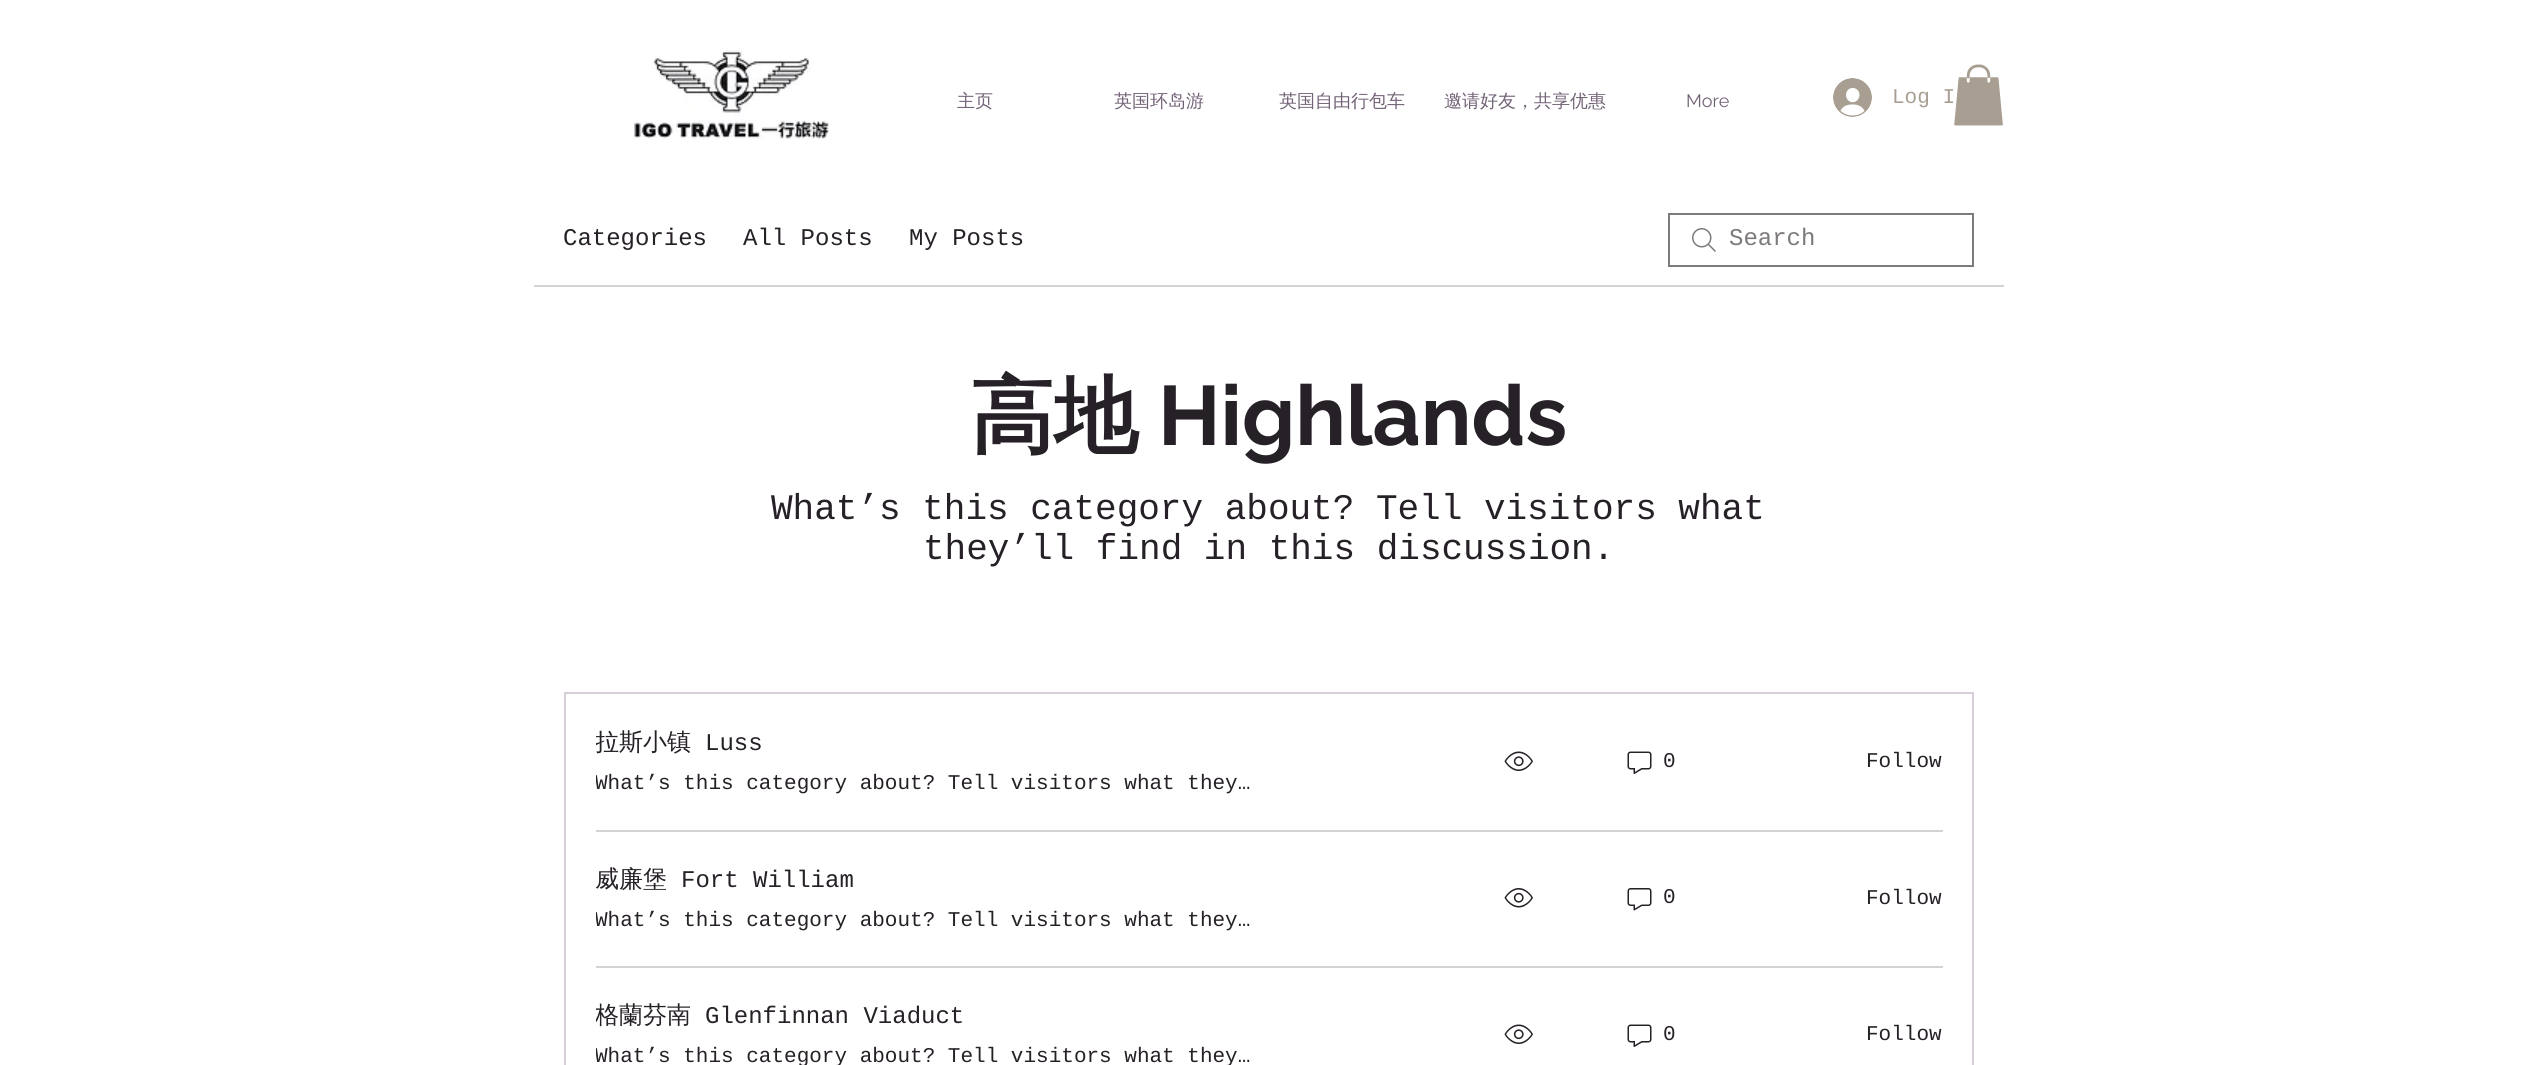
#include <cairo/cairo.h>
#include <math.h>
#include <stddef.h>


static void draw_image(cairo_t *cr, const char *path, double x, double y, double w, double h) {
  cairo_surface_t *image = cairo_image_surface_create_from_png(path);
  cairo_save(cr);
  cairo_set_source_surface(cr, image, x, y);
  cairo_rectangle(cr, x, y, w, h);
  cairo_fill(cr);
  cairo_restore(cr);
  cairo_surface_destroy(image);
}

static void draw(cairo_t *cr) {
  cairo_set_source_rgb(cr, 1, 1, 1);
  cairo_paint(cr);
  draw_image(cr, "images/1.png", 630, 50, 199, 89);
  draw_image(cr, "images/2.png", 1833, 78, 39, 39);
  draw_image(cr, "images/3.png", 1954, 64, 49, 62);
  cairo_set_source_rgb(cr, 212 / 255.0, 210 / 255.0, 212 / 255.0);
  cairo_rectangle(cr, 534, 285, 1470, 2);
  cairo_fill(cr);
  draw_image(cr, "images/4.png", 1692, 228, 24, 24);
  cairo_rectangle(cr, 1669, 214, 304, 52);
  cairo_set_source_rgb(cr, 125 / 255.0, 121 / 255.0, 125 / 255.0);
  cairo_stroke(cr);
  cairo_rectangle(cr, 565, 693, 1408, 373);
  cairo_set_source_rgb(cr, 215 / 255.0, 206 / 255.0, 218 / 255.0);
  cairo_stroke(cr);
  draw_image(cr, "images/5.png", 1504, 751, 29, 20);
  draw_image(cr, "images/6.png", 1627, 751, 25, 23);
  cairo_set_source_rgb(cr, 212 / 255.0, 210 / 255.0, 212 / 255.0);
  cairo_rectangle(cr, 596, 830, 1347, 2);
  cairo_fill(cr);
  draw_image(cr, "images/7.png", 1504, 888, 29, 20);
  draw_image(cr, "images/8.png", 1627, 888, 25, 23);
  cairo_rectangle(cr, 596, 966, 1347, 2);
  cairo_fill(cr);
  draw_image(cr, "images/5.png", 1504, 1024, 29, 20);
  draw_image(cr, "images/6.png", 1627, 1024, 25, 23);
  cairo_select_font_face(cr, "WenQuanYi Zen Hei Medium", CAIRO_FONT_SLANT_NORMAL, CAIRO_FONT_WEIGHT_NORMAL);
  cairo_set_font_size(cr, 18);
  cairo_set_source_rgb(cr, 114 / 255.0, 98 / 255.0, 119 / 255.0);
  cairo_move_to(cr, 957, 107);
  cairo_show_text(cr, "主页");
  cairo_move_to(cr, 1114, 107);
  cairo_show_text(cr, "英国环岛游");
  cairo_move_to(cr, 1279, 107);
  cairo_show_text(cr, "英国自由行包车");
  cairo_move_to(cr, 1444, 107);
  cairo_show_text(cr, "邀请好友，共享优惠");
  cairo_select_font_face(cr, "Raleway", CAIRO_FONT_SLANT_NORMAL, CAIRO_FONT_WEIGHT_NORMAL);
  cairo_move_to(cr, 1686, 107);
  cairo_show_text(cr, "More");
  cairo_select_font_face(cr, "Liberation Mono", CAIRO_FONT_SLANT_NORMAL, CAIRO_FONT_WEIGHT_NORMAL);
  cairo_set_font_size(cr, 21);
  cairo_set_source_rgb(cr, 168 / 255.0, 158 / 255.0, 145 / 255.0);
  cairo_move_to(cr, 1892, 103);
  cairo_show_text(cr, "Log I");
  cairo_set_font_size(cr, 24);
  cairo_set_source_rgb(cr, 38 / 255.0, 32 / 255.0, 39 / 255.0);
  cairo_move_to(cr, 563, 245);
  cairo_show_text(cr, "Categories");
  cairo_move_to(cr, 743, 245);
  cairo_show_text(cr, "All Posts");
  cairo_move_to(cr, 909, 245);
  cairo_show_text(cr, "My Posts");
  cairo_set_source_rgb(cr, 125 / 255.0, 121 / 255.0, 125 / 255.0);
  cairo_move_to(cr, 1729, 245);
  cairo_show_text(cr, "Search");
  cairo_select_font_face(cr, "WenQuanYi Zen Hei", CAIRO_FONT_SLANT_NORMAL, CAIRO_FONT_WEIGHT_BOLD);
  cairo_set_font_size(cr, 84);
  cairo_set_source_rgb(cr, 38 / 255.0, 32 / 255.0, 39 / 255.0);
  cairo_move_to(cr, 970, 445);
  cairo_show_text(cr, "高地");
  cairo_select_font_face(cr, "Raleway", CAIRO_FONT_SLANT_NORMAL, CAIRO_FONT_WEIGHT_BOLD);
  cairo_move_to(cr, 1158, 445);
  cairo_show_text(cr, "Highlands");
  cairo_select_font_face(cr, "Liberation Mono", CAIRO_FONT_SLANT_NORMAL, CAIRO_FONT_WEIGHT_NORMAL);
  cairo_set_font_size(cr, 36);
  cairo_move_to(cr, 771, 519);
  cairo_show_text(cr, "What’s this category about? Tell visitors what");
  cairo_move_to(cr, 923, 559);
  cairo_show_text(cr, "they’ll find in this discussion.");
  cairo_save(cr);
  cairo_rectangle(cr, 596, 728, 1161, 67);
  cairo_clip(cr);
  cairo_select_font_face(cr, "WenQuanYi Zen Hei Medium", CAIRO_FONT_SLANT_NORMAL, CAIRO_FONT_WEIGHT_NORMAL);
  cairo_set_font_size(cr, 24);
  cairo_move_to(cr, 595, 750);
  cairo_show_text(cr, "拉斯小镇");
  cairo_restore(cr);
  cairo_set_font_size(cr, 24);
  cairo_move_to(cr, 705, 750);
  cairo_show_text(cr, "Luss");
  cairo_save(cr);
  cairo_rectangle(cr, 596, 771, 664, 24);
  cairo_clip(cr);
  cairo_set_font_size(cr, 21);
  cairo_move_to(cr, 595, 789);
  cairo_show_text(cr, "What’s this category about? Tell visitors what they…");
  cairo_restore(cr);
  cairo_set_font_size(cr, 21);
  cairo_move_to(cr, 1663, 767);
  cairo_show_text(cr, "0");
  cairo_move_to(cr, 1866, 767);
  cairo_show_text(cr, "Follow");
  cairo_select_font_face(cr, "WenQuanYi Zen Hei Medium", CAIRO_FONT_SLANT_NORMAL, CAIRO_FONT_WEIGHT_NORMAL);
  cairo_set_font_size(cr, 24);
  cairo_move_to(cr, 595, 887);
  cairo_show_text(cr, "威廉堡");
  cairo_select_font_face(cr, "Liberation Mono", CAIRO_FONT_SLANT_NORMAL, CAIRO_FONT_WEIGHT_NORMAL);
  cairo_move_to(cr, 681, 887);
  cairo_show_text(cr, "Fort William");
  cairo_save(cr);
  cairo_rectangle(cr, 596, 908, 664, 24);
  cairo_clip(cr);
  cairo_set_font_size(cr, 21);
  cairo_move_to(cr, 595, 926);
  cairo_show_text(cr, "What’s this category about? Tell visitors what they…");
  cairo_restore(cr);
  cairo_set_font_size(cr, 21);
  cairo_move_to(cr, 1663, 903);
  cairo_show_text(cr, "0");
  cairo_move_to(cr, 1866, 904);
  cairo_show_text(cr, "Follow");
  cairo_save(cr);
  cairo_rectangle(cr, 596, 1001, 1161, 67);
  cairo_clip(cr);
  cairo_select_font_face(cr, "WenQuanYi Zen Hei Medium", CAIRO_FONT_SLANT_NORMAL, CAIRO_FONT_WEIGHT_NORMAL);
  cairo_set_font_size(cr, 24);
  cairo_move_to(cr, 595, 1023);
  cairo_show_text(cr, "格蘭芬南");
  cairo_restore(cr);
  cairo_set_font_size(cr, 24);
  cairo_move_to(cr, 705, 1023);
  cairo_show_text(cr, "Glenfinnan Viaduct");
  cairo_save(cr);
  cairo_rectangle(cr, 596, 1044, 664, 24);
  cairo_clip(cr);
  cairo_set_font_size(cr, 21);
  cairo_move_to(cr, 595, 1062);
  cairo_show_text(cr, "What’s this category about? Tell visitors what they…");
  cairo_restore(cr);
  cairo_set_font_size(cr, 21);
  cairo_move_to(cr, 1663, 1040);
  cairo_show_text(cr, "0");
  cairo_move_to(cr, 1866, 1040);
  cairo_show_text(cr, "Follow");
}

int main(void) {
  cairo_surface_t *surface = cairo_image_surface_create(CAIRO_FORMAT_RGB24, 2536, 1065);
  cairo_t *cr = cairo_create(surface);
  cairo_font_options_t *options = cairo_font_options_create();
  cairo_font_options_set_hint_metrics(options, CAIRO_HINT_METRICS_OFF);
  cairo_font_options_set_hint_style(options, CAIRO_HINT_STYLE_NONE);
  cairo_set_font_options(cr, options);
  cairo_set_miter_limit(cr, 4);
  draw(cr);
  cairo_surface_write_to_png(surface, "out.png");
  cairo_font_options_destroy(options);
  cairo_destroy(cr);
  cairo_surface_destroy(surface);
  return 0;
}
